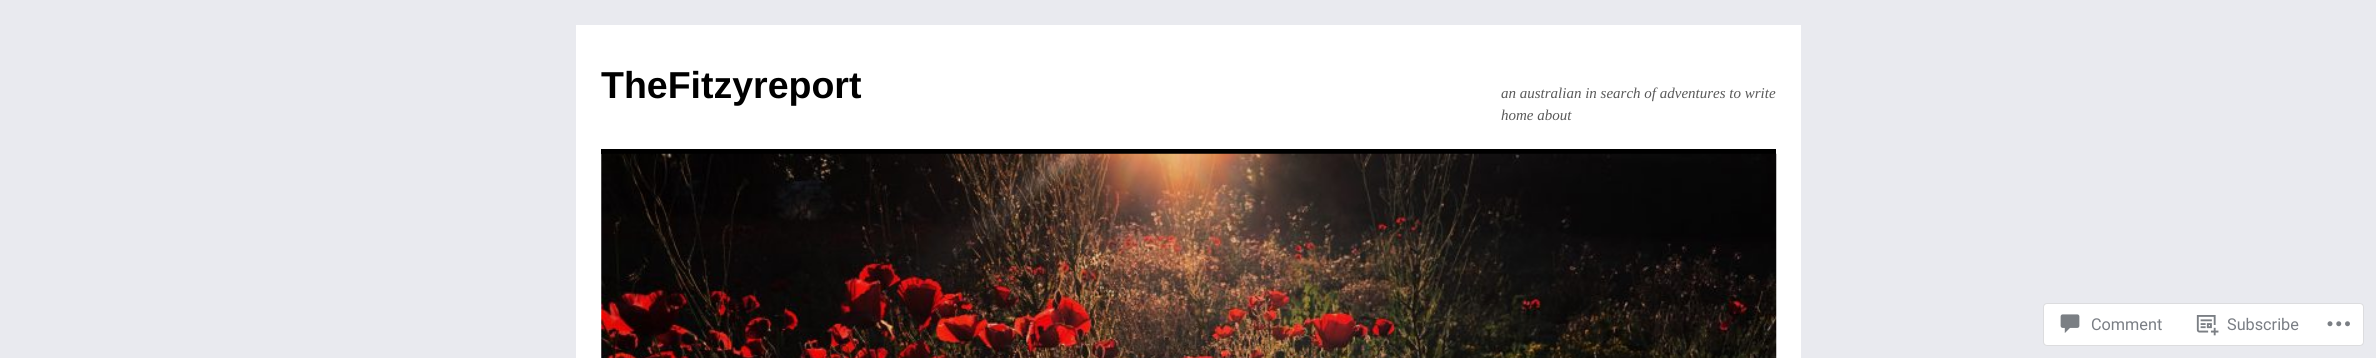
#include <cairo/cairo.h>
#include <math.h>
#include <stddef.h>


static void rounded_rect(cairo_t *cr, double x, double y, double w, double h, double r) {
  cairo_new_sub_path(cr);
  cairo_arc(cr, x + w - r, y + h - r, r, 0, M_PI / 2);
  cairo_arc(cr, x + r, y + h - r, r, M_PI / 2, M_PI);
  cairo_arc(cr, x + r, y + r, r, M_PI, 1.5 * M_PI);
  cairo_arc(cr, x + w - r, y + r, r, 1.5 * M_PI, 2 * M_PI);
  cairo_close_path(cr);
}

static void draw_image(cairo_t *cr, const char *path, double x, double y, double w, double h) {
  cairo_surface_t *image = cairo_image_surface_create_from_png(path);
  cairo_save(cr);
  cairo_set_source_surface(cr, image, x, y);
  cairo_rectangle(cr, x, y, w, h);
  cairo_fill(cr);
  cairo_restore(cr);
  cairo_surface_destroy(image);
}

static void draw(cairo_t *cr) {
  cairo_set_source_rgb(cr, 233 / 255.0, 234 / 255.0, 239 / 255.0);
  cairo_paint(cr);
  cairo_set_source_rgb(cr, 1, 1, 1);
  cairo_rectangle(cr, 576, 25, 1225, 333);
  cairo_fill(cr);
  cairo_set_source_rgb(cr, 0, 0, 0);
  cairo_rectangle(cr, 601, 149, 1175, 5);
  cairo_fill(cr);
  draw_image(cr, "images/1.png", 601, 153, 1176, 205);
  cairo_set_source_rgb(cr, 1, 1, 1);
  rounded_rect(cr, 2043.5, 303.5, 320, 42, 3.5);
  cairo_fill_preserve(cr);
  cairo_set_source_rgb(cr, 220 / 255.0, 220 / 255.0, 222 / 255.0);
  cairo_set_line_width(cr, 1);
  cairo_stroke(cr);
  draw_image(cr, "images/2.png", 2060, 314, 20, 19);
  draw_image(cr, "images/3.png", 2196, 315, 23, 21);
  draw_image(cr, "images/4.png", 2327, 321, 23, 6);
  cairo_select_font_face(cr, "Liberation Sans", CAIRO_FONT_SLANT_NORMAL, CAIRO_FONT_WEIGHT_BOLD);
  cairo_set_font_size(cr, 37.5);
  cairo_set_source_rgb(cr, 0, 0, 0);
  cairo_move_to(cr, 601, 98);
  cairo_show_text(cr, "TheFitzyreport");
  cairo_select_font_face(cr, "Liberation Serif", CAIRO_FONT_SLANT_ITALIC, CAIRO_FONT_WEIGHT_NORMAL);
  cairo_set_font_size(cr, 15);
  cairo_set_source_rgb(cr, 89 / 255.0, 89 / 255.0, 89 / 255.0);
  cairo_move_to(cr, 1501, 98);
  cairo_show_text(cr, "an australian in search of adventures to write");
  cairo_move_to(cr, 1501, 120);
  cairo_show_text(cr, "home about");
  cairo_select_font_face(cr, "Roboto", CAIRO_FONT_SLANT_NORMAL, CAIRO_FONT_WEIGHT_NORMAL);
  cairo_set_font_size(cr, 16.25);
  cairo_set_source_rgb(cr, 122 / 255.0, 126 / 255.0, 132 / 255.0);
  cairo_move_to(cr, 2091, 330);
  cairo_show_text(cr, "Comment");
  cairo_move_to(cr, 2227, 330);
  cairo_show_text(cr, "Subscribe");
}

int main(void) {
  cairo_surface_t *surface = cairo_image_surface_create(CAIRO_FORMAT_RGB24, 2376, 358);
  cairo_t *cr = cairo_create(surface);
  cairo_font_options_t *options = cairo_font_options_create();
  cairo_font_options_set_hint_metrics(options, CAIRO_HINT_METRICS_OFF);
  cairo_font_options_set_hint_style(options, CAIRO_HINT_STYLE_NONE);
  cairo_set_font_options(cr, options);
  cairo_set_miter_limit(cr, 4);
  draw(cr);
  cairo_surface_write_to_png(surface, "out.png");
  cairo_font_options_destroy(options);
  cairo_destroy(cr);
  cairo_surface_destroy(surface);
  return 0;
}
